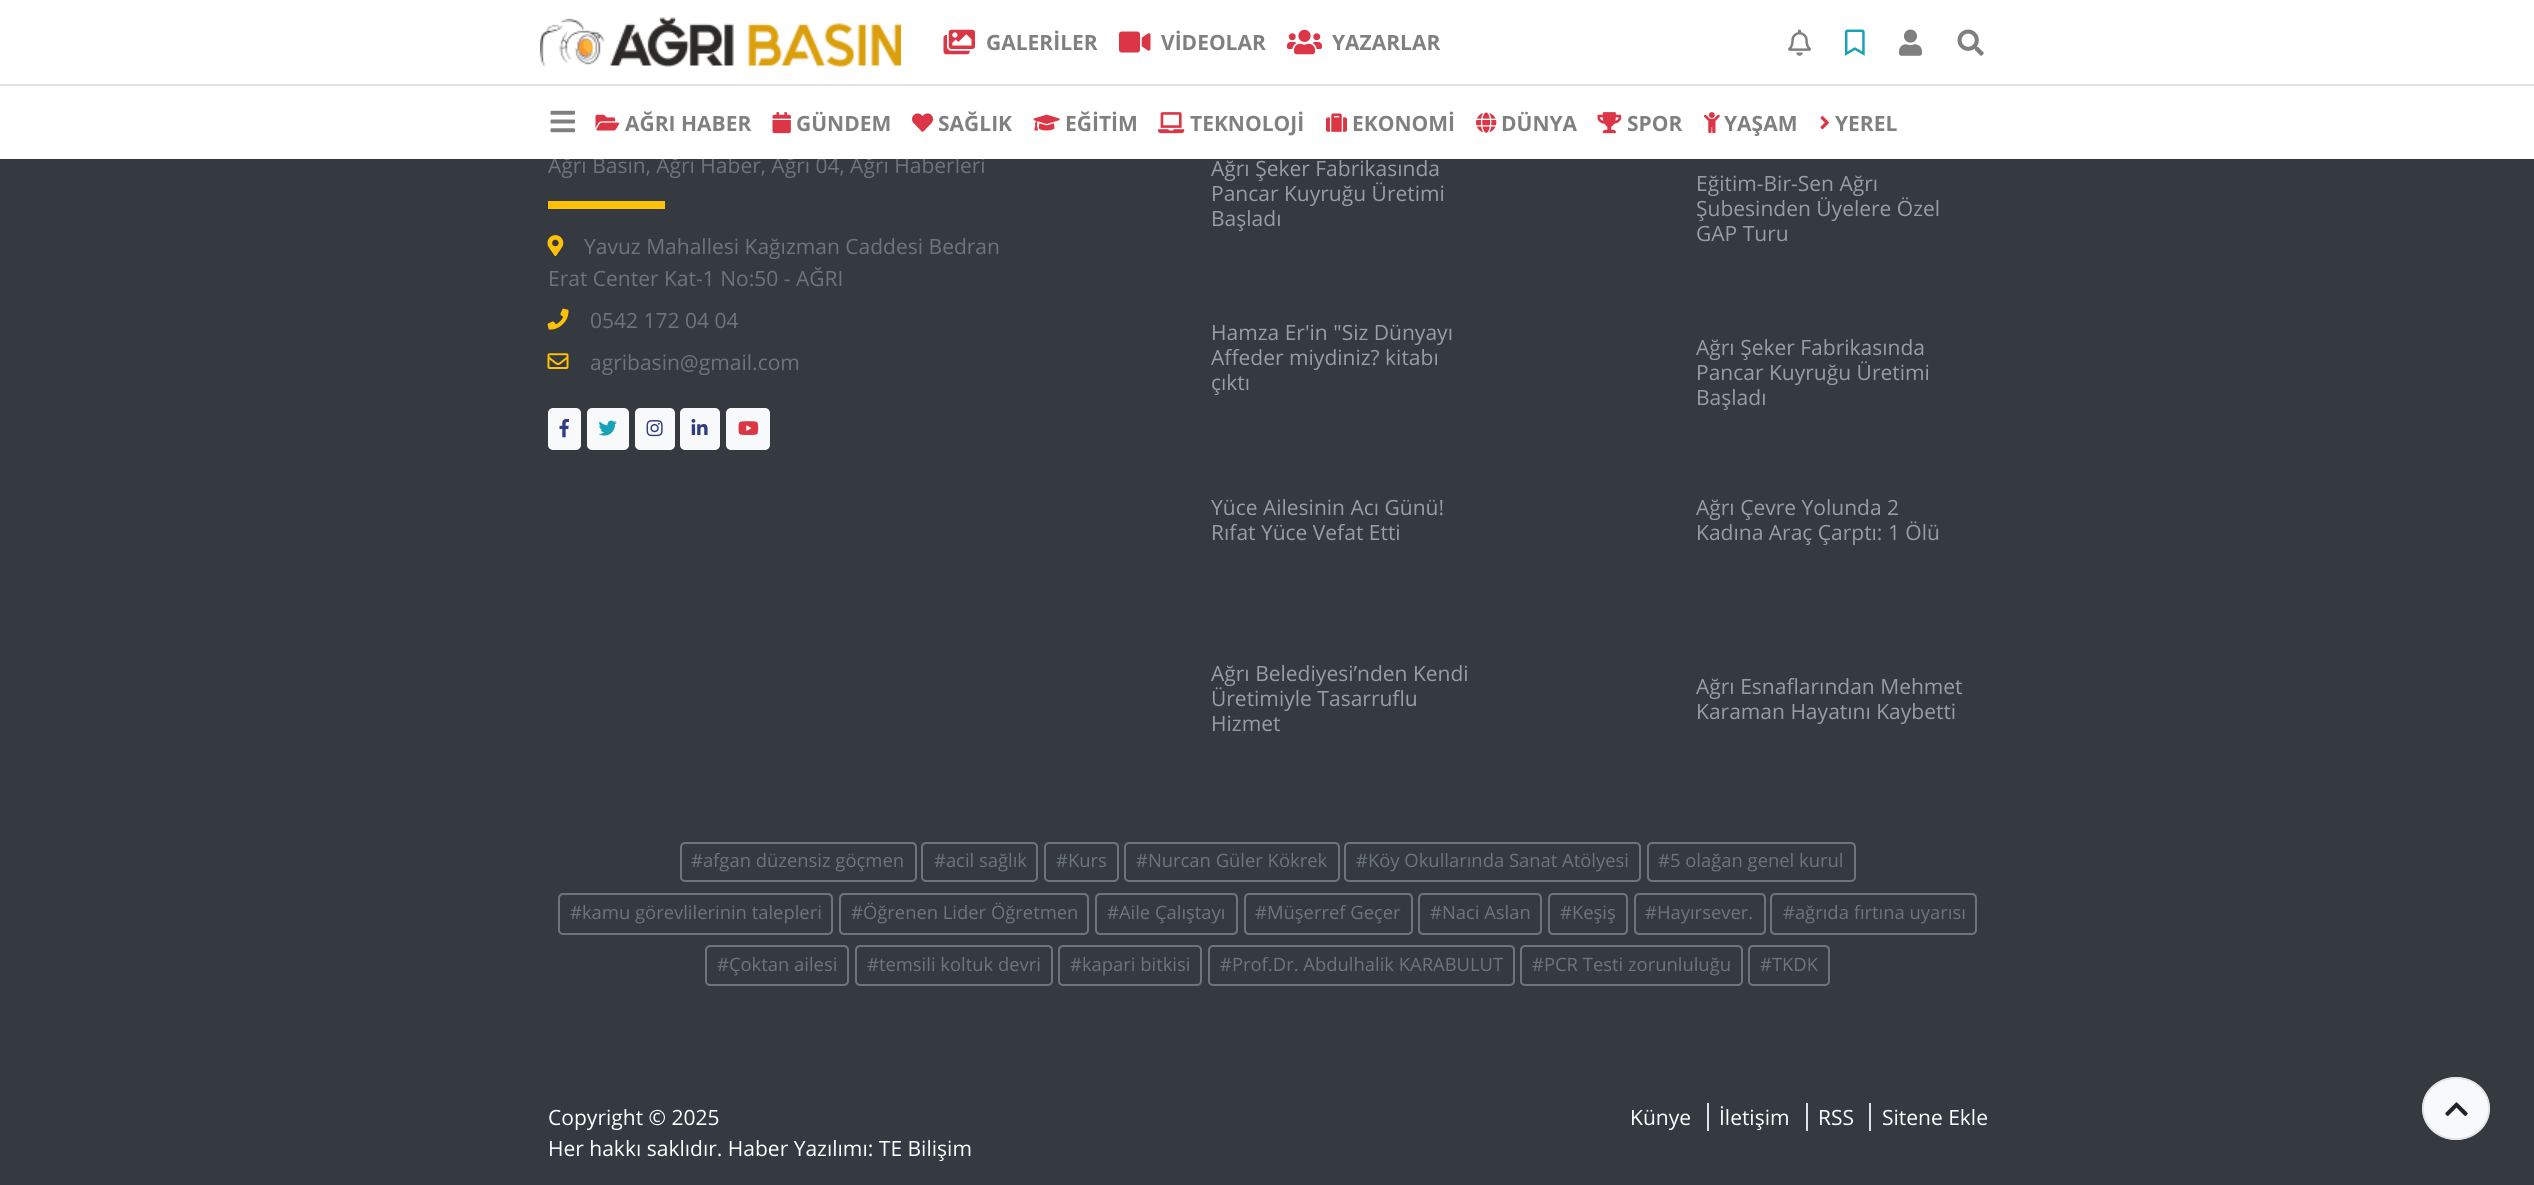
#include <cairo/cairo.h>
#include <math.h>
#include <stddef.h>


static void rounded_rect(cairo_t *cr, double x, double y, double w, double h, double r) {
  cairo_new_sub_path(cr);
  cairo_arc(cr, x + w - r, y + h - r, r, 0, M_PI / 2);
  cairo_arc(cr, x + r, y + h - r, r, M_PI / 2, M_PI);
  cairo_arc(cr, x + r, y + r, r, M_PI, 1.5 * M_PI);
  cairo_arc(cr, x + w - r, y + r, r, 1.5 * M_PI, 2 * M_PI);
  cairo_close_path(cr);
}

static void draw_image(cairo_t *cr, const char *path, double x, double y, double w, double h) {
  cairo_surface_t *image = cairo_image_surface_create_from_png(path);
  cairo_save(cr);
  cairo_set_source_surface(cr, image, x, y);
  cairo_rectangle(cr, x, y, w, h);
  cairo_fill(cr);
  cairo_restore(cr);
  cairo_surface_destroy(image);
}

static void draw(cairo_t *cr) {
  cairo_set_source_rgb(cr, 52 / 255.0, 58 / 255.0, 64 / 255.0);
  cairo_paint(cr);
  cairo_set_source_rgb(cr, 1, 193 / 255.0, 7 / 255.0);
  cairo_rectangle(cr, 548, 201, 117, 8);
  cairo_fill(cr);
  draw_image(cr, "images/20.png", 547, 235, 17, 22);
  draw_image(cr, "images/21.png", 547, 308, 22, 22);
  draw_image(cr, "images/22.png", 547, 353, 22, 16);
  cairo_set_source_rgb(cr, 248 / 255.0, 249 / 255.0, 250 / 255.0);
  rounded_rect(cr, 549, 409, 31, 40, 4);
  cairo_fill_preserve(cr);
  cairo_stroke(cr);
  draw_image(cr, "images/23.png", 559, 418, 10, 20);
  rounded_rect(cr, 588, 409, 40, 40, 4);
  cairo_fill_preserve(cr);
  cairo_stroke(cr);
  draw_image(cr, "images/24.png", 598, 420, 19, 16);
  rounded_rect(cr, 636, 409, 38, 40, 4);
  cairo_fill_preserve(cr);
  cairo_stroke(cr);
  draw_image(cr, "images/25.png", 646, 420, 17, 17);
  rounded_rect(cr, 681, 409, 38, 40, 4);
  cairo_fill_preserve(cr);
  cairo_stroke(cr);
  draw_image(cr, "images/26.png", 691, 418, 17, 17);
  rounded_rect(cr, 727, 409, 42, 40, 4);
  cairo_fill_preserve(cr);
  cairo_stroke(cr);
  draw_image(cr, "images/27.png", 738, 421, 21, 14);
  rounded_rect(cr, 681, 843, 235, 38, 4);
  cairo_set_source_rgb(cr, 108 / 255.0, 117 / 255.0, 125 / 255.0);
  cairo_stroke(cr);
  rounded_rect(cr, 922, 843, 115, 38, 4);
  cairo_stroke(cr);
  rounded_rect(cr, 1045, 843, 73, 38, 4);
  cairo_stroke(cr);
  rounded_rect(cr, 1125, 843, 214, 38, 4);
  cairo_stroke(cr);
  rounded_rect(cr, 1345, 843, 295, 38, 4);
  cairo_stroke(cr);
  rounded_rect(cr, 1648, 843, 207, 38, 4);
  cairo_stroke(cr);
  rounded_rect(cr, 559, 894, 273, 40, 4);
  cairo_stroke(cr);
  rounded_rect(cr, 840, 894, 248, 40, 4);
  cairo_stroke(cr);
  rounded_rect(cr, 1096, 894, 141, 40, 4);
  cairo_stroke(cr);
  rounded_rect(cr, 1245, 894, 167, 40, 4);
  cairo_stroke(cr);
  rounded_rect(cr, 1419, 894, 122, 40, 4);
  cairo_stroke(cr);
  rounded_rect(cr, 1549, 894, 78, 40, 4);
  cairo_stroke(cr);
  rounded_rect(cr, 1635, 894, 130, 40, 4);
  cairo_stroke(cr);
  rounded_rect(cr, 1771, 894, 205, 40, 4);
  cairo_stroke(cr);
  rounded_rect(cr, 706, 946, 142, 39, 4);
  cairo_stroke(cr);
  rounded_rect(cr, 856, 946, 196, 39, 4);
  cairo_stroke(cr);
  rounded_rect(cr, 1059, 946, 142, 39, 4);
  cairo_stroke(cr);
  rounded_rect(cr, 1209, 946, 305, 39, 4);
  cairo_stroke(cr);
  rounded_rect(cr, 1521, 946, 221, 39, 4);
  cairo_stroke(cr);
  rounded_rect(cr, 1749, 946, 80, 39, 4);
  cairo_stroke(cr);
  cairo_set_source_rgb(cr, 222 / 255.0, 226 / 255.0, 230 / 255.0);
  cairo_rectangle(cr, 1707, 1103, 2, 28);
  cairo_fill(cr);
  cairo_rectangle(cr, 1806, 1103, 2, 28);
  cairo_fill(cr);
  cairo_rectangle(cr, 1869, 1103, 2, 28);
  cairo_fill(cr);
  cairo_set_source_rgb(cr, 248 / 255.0, 249 / 255.0, 250 / 255.0);
  cairo_new_path(cr);
  cairo_move_to(cr, 2456, 1077);
  cairo_curve_to(cr, 2475, 1077, 2490, 1091, 2490, 1108.5);
  cairo_curve_to(cr, 2490, 1126, 2475, 1140, 2456, 1140);
  cairo_curve_to(cr, 2437, 1140, 2422, 1126, 2422, 1108.5);
  cairo_curve_to(cr, 2422, 1091, 2437, 1077, 2456, 1077);
  cairo_close_path(cr);
  cairo_fill(cr);
  cairo_new_path(cr);
  cairo_move_to(cr, 2456, 1078);
  cairo_curve_to(cr, 2474.5, 1078, 2489, 1091.5, 2489, 1108.5);
  cairo_curve_to(cr, 2489, 1125.5, 2474.5, 1139, 2456, 1139);
  cairo_curve_to(cr, 2438, 1139, 2423, 1125.5, 2423, 1108.5);
  cairo_curve_to(cr, 2423, 1091.5, 2438, 1078, 2456, 1078);
  cairo_close_path(cr);
  cairo_set_source_rgb(cr, 222 / 255.0, 226 / 255.0, 230 / 255.0);
  cairo_set_line_width(cr, 1.5);
  cairo_stroke(cr);
  draw_image(cr, "images/28.png", 2445, 1102, 23, 14);
  cairo_select_font_face(cr, "Open Sans", CAIRO_FONT_SLANT_NORMAL, CAIRO_FONT_WEIGHT_NORMAL);
  cairo_set_font_size(cr, 21);
  cairo_set_source_rgb(cr, 108 / 255.0, 117 / 255.0, 125 / 255.0);
  cairo_move_to(cr, 548, 173);
  cairo_show_text(cr, "Ağrı Basın, Ağrı Haber, Ağrı 04, Ağrı Haberleri");
  cairo_set_source_rgb(cr, 1, 1, 1);
  cairo_rectangle(cr, 0, 0, 2534, 159);
  cairo_fill(cr);
  draw_image(cr, "images/9.png", 550, 110, 25, 23);
  cairo_select_font_face(cr, "Open Sans", CAIRO_FONT_SLANT_NORMAL, CAIRO_FONT_WEIGHT_BOLD);
  cairo_set_source_rgb(cr, 128 / 255.0, 128 / 255.0, 128 / 255.0);
  cairo_move_to(cr, 1835, 131);
  cairo_show_text(cr, "YEREL");
  draw_image(cr, "images/19.png", 1820, 116, 9, 14);
  cairo_move_to(cr, 1724, 131);
  cairo_show_text(cr, "YAŞAM");
  draw_image(cr, "images/18.png", 1704, 112, 16, 22);
  cairo_move_to(cr, 1627, 131);
  cairo_show_text(cr, "SPOR");
  draw_image(cr, "images/17.png", 1597, 112, 25, 22);
  cairo_move_to(cr, 1501, 131);
  cairo_show_text(cr, "DÜNYA");
  draw_image(cr, "images/16.png", 1476, 112, 21, 21);
  cairo_move_to(cr, 1352, 131);
  cairo_show_text(cr, "EKONOMİ");
  draw_image(cr, "images/15.png", 1326, 113, 21, 19);
  cairo_move_to(cr, 1190, 131);
  cairo_show_text(cr, "TEKNOLOJİ");
  draw_image(cr, "images/14.png", 1158, 112, 27, 22);
  cairo_move_to(cr, 1065, 131);
  cairo_show_text(cr, "EĞİTİM");
  draw_image(cr, "images/13.png", 1033, 114, 27, 17);
  cairo_move_to(cr, 938, 131);
  cairo_show_text(cr, "SAĞLIK");
  draw_image(cr, "images/12.png", 912, 113, 21, 19);
  cairo_move_to(cr, 796, 131);
  cairo_show_text(cr, "GÜNDEM");
  draw_image(cr, "images/11.png", 772, 112, 19, 22);
  cairo_move_to(cr, 625, 131);
  cairo_show_text(cr, "AĞRI HABER");
  draw_image(cr, "images/10.png", 595, 114, 25, 17);
  draw_image(cr, "images/6.png", 1845, 29, 20, 27);
  draw_image(cr, "images/5.png", 1788, 29, 23, 27);
  draw_image(cr, "images/8.png", 1957, 29, 27, 27);
  draw_image(cr, "images/7.png", 1899, 29, 23, 27);
  cairo_move_to(cr, 1332, 50);
  cairo_show_text(cr, "YAZARLAR");
  draw_image(cr, "images/4.png", 1287, 29, 35, 26);
  cairo_move_to(cr, 1161, 50);
  cairo_show_text(cr, "VİDEOLAR");
  draw_image(cr, "images/3.png", 1119, 31, 32, 22);
  cairo_move_to(cr, 986, 50);
  cairo_show_text(cr, "GALERİLER");
  draw_image(cr, "images/2.png", 943, 29, 32, 26);
  draw_image(cr, "images/1.png", 540, 17, 361, 50);
  cairo_set_source_rgb(cr, 222 / 255.0, 226 / 255.0, 230 / 255.0);
  cairo_rectangle(cr, 0, 84, 2534, 2);
  cairo_fill(cr);
  cairo_select_font_face(cr, "Open Sans", CAIRO_FONT_SLANT_NORMAL, CAIRO_FONT_WEIGHT_NORMAL);
  cairo_set_source_rgb(cr, 108 / 255.0, 117 / 255.0, 125 / 255.0);
  cairo_move_to(cr, 584, 254);
  cairo_show_text(cr, "Yavuz Mahallesi Kağızman Caddesi Bedran");
  cairo_move_to(cr, 548, 286);
  cairo_show_text(cr, "Erat Center Kat-1 No:50 - AĞRI");
  cairo_move_to(cr, 590, 328);
  cairo_show_text(cr, "0542 172 04 04");
  cairo_move_to(cr, 590, 370);
  cairo_show_text(cr, "agribasin@gmail.com");
  cairo_set_source_rgb(cr, 154 / 255.0, 157 / 255.0, 160 / 255.0);
  cairo_move_to(cr, 1211, 176);
  cairo_show_text(cr, "Ağrı Şeker Fabrikasında");
  cairo_move_to(cr, 1211, 201);
  cairo_show_text(cr, "Pancar Kuyruğu Üretimi");
  cairo_move_to(cr, 1211, 226);
  cairo_show_text(cr, "Başladı");
  cairo_move_to(cr, 1211, 340);
  cairo_show_text(cr, "Hamza Er'in \"Siz Dünyayı");
  cairo_move_to(cr, 1211, 365);
  cairo_show_text(cr, "Affeder miydiniz? kitabı");
  cairo_move_to(cr, 1211, 390);
  cairo_show_text(cr, "çıktı");
  cairo_move_to(cr, 1211, 515);
  cairo_show_text(cr, "Yüce Ailesinin Acı Günü!");
  cairo_move_to(cr, 1211, 540);
  cairo_show_text(cr, "Rıfat Yüce Vefat Etti");
  cairo_move_to(cr, 1211, 681);
  cairo_show_text(cr, "Ağrı Belediyesi’nden Kendi");
  cairo_move_to(cr, 1211, 706);
  cairo_show_text(cr, "Üretimiyle Tasarruflu");
  cairo_move_to(cr, 1211, 731);
  cairo_show_text(cr, "Hizmet");
  cairo_move_to(cr, 1696, 191);
  cairo_show_text(cr, "Eğitim-Bir-Sen Ağrı");
  cairo_move_to(cr, 1696, 216);
  cairo_show_text(cr, "Şubesinden Üyelere Özel");
  cairo_move_to(cr, 1696, 241);
  cairo_show_text(cr, "GAP Turu");
  cairo_move_to(cr, 1696, 355);
  cairo_show_text(cr, "Ağrı Şeker Fabrikasında");
  cairo_move_to(cr, 1696, 380);
  cairo_show_text(cr, "Pancar Kuyruğu Üretimi");
  cairo_move_to(cr, 1696, 405);
  cairo_show_text(cr, "Başladı");
  cairo_move_to(cr, 1696, 515);
  cairo_show_text(cr, "Ağrı Çevre Yolunda 2");
  cairo_move_to(cr, 1696, 540);
  cairo_show_text(cr, "Kadına Araç Çarptı: 1 Ölü");
  cairo_move_to(cr, 1696, 694);
  cairo_show_text(cr, "Ağrı Esnaflarından Mehmet");
  cairo_move_to(cr, 1696, 719);
  cairo_show_text(cr, "Karaman Hayatını Kaybetti");
  cairo_set_font_size(cr, 18.4);
  cairo_set_source_rgb(cr, 108 / 255.0, 117 / 255.0, 125 / 255.0);
  cairo_move_to(cr, 691, 867);
  cairo_show_text(cr, "#afgan düzensiz göçmen");
  cairo_move_to(cr, 934, 867);
  cairo_show_text(cr, "#acil sağlık");
  cairo_move_to(cr, 1056, 867);
  cairo_show_text(cr, "#Kurs");
  cairo_move_to(cr, 1136, 867);
  cairo_show_text(cr, "#Nurcan Güler Kökrek");
  cairo_move_to(cr, 1356, 867);
  cairo_show_text(cr, "#Köy Okullarında Sanat Atölyesi");
  cairo_move_to(cr, 1658, 867);
  cairo_show_text(cr, "#5 olağan genel kurul");
  cairo_move_to(cr, 570, 919);
  cairo_show_text(cr, "#kamu görevlilerinin talepleri");
  cairo_move_to(cr, 851, 919);
  cairo_show_text(cr, "#Öğrenen Lider Öğretmen");
  cairo_move_to(cr, 1107, 919);
  cairo_show_text(cr, "#Aile Çalıştayı");
  cairo_move_to(cr, 1255, 919);
  cairo_show_text(cr, "#Müşerref Geçer");
  cairo_move_to(cr, 1430, 919);
  cairo_show_text(cr, "#Naci Aslan");
  cairo_move_to(cr, 1560, 919);
  cairo_show_text(cr, "#Keşiş");
  cairo_move_to(cr, 1645, 919);
  cairo_show_text(cr, "#Hayırsever.");
  cairo_move_to(cr, 1783, 919);
  cairo_show_text(cr, "#ağrıda fırtına uyarısı");
  cairo_move_to(cr, 717, 971);
  cairo_show_text(cr, "#Çoktan ailesi");
  cairo_move_to(cr, 867, 971);
  cairo_show_text(cr, "#temsili koltuk devri");
  cairo_move_to(cr, 1070, 971);
  cairo_show_text(cr, "#kapari bitkisi");
  cairo_move_to(cr, 1220, 971);
  cairo_show_text(cr, "#Prof.Dr. Abdulhalik KARABULUT");
  cairo_move_to(cr, 1532, 971);
  cairo_show_text(cr, "#PCR Testi zorunluluğu");
  cairo_move_to(cr, 1760, 971);
  cairo_show_text(cr, "#TKDK");
  cairo_set_font_size(cr, 21);
  cairo_set_source_rgb(cr, 1, 1, 1);
  cairo_move_to(cr, 548, 1125);
  cairo_show_text(cr, "Copyright © 2025");
  cairo_move_to(cr, 548, 1156);
  cairo_show_text(cr, "Her hakkı saklıdır. Haber Yazılımı: TE Bilişim");
  cairo_move_to(cr, 1630, 1125);
  cairo_show_text(cr, "Künye");
  cairo_move_to(cr, 1719, 1125);
  cairo_show_text(cr, "İletişim");
  cairo_move_to(cr, 1818, 1125);
  cairo_show_text(cr, "RSS");
  cairo_move_to(cr, 1882, 1125);
  cairo_show_text(cr, "Sitene Ekle");
}

int main(void) {
  cairo_surface_t *surface = cairo_image_surface_create(CAIRO_FORMAT_RGB24, 2534, 1185);
  cairo_t *cr = cairo_create(surface);
  cairo_font_options_t *options = cairo_font_options_create();
  cairo_font_options_set_hint_metrics(options, CAIRO_HINT_METRICS_OFF);
  cairo_font_options_set_hint_style(options, CAIRO_HINT_STYLE_NONE);
  cairo_set_font_options(cr, options);
  cairo_set_miter_limit(cr, 4);
  draw(cr);
  cairo_surface_write_to_png(surface, "out.png");
  cairo_font_options_destroy(options);
  cairo_destroy(cr);
  cairo_surface_destroy(surface);
  return 0;
}
